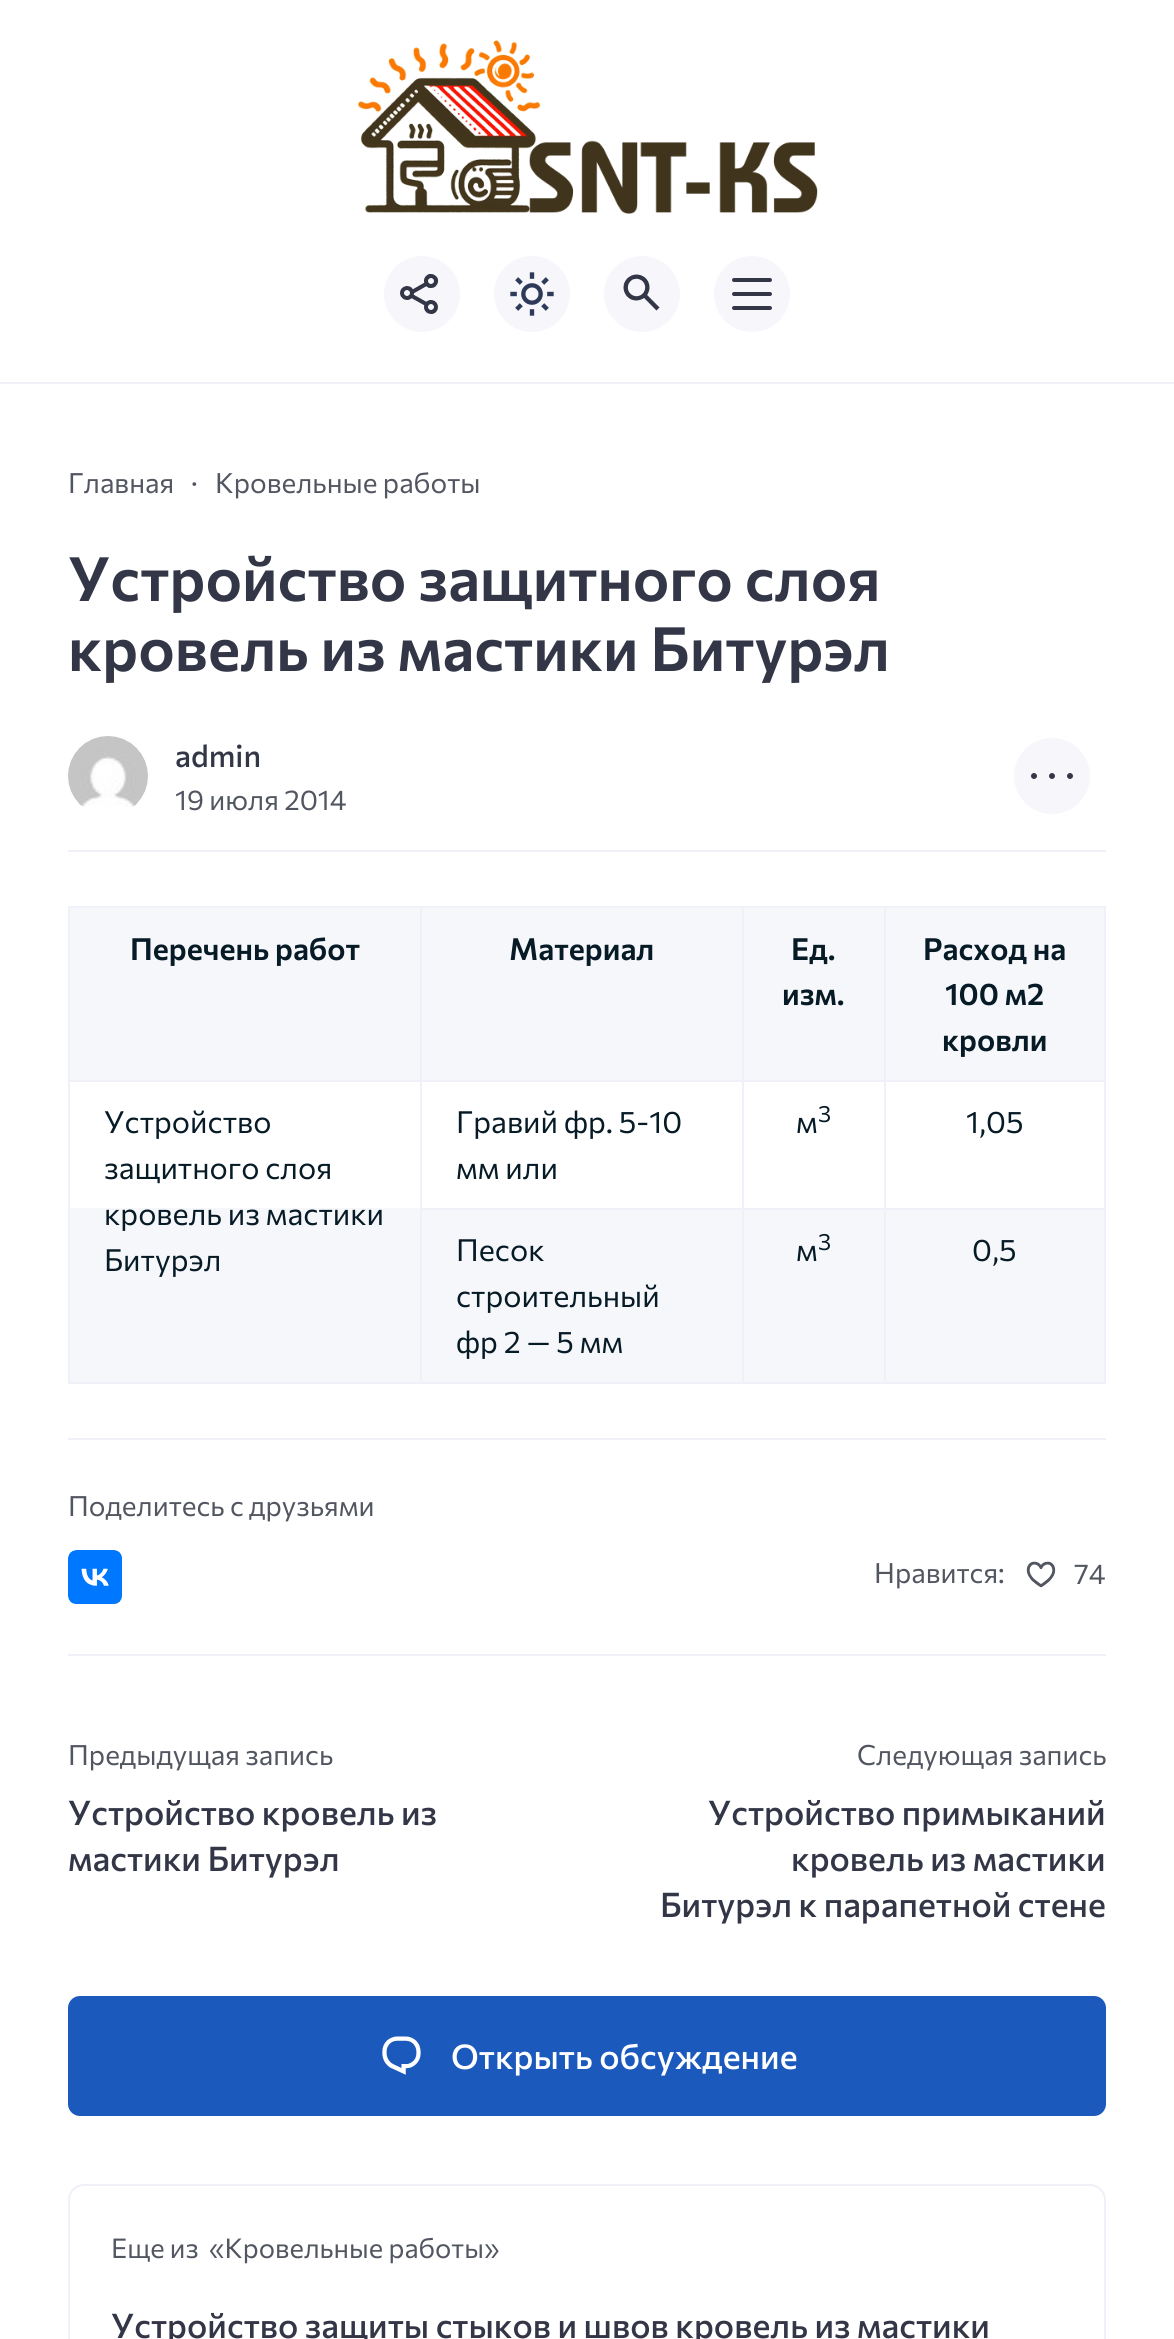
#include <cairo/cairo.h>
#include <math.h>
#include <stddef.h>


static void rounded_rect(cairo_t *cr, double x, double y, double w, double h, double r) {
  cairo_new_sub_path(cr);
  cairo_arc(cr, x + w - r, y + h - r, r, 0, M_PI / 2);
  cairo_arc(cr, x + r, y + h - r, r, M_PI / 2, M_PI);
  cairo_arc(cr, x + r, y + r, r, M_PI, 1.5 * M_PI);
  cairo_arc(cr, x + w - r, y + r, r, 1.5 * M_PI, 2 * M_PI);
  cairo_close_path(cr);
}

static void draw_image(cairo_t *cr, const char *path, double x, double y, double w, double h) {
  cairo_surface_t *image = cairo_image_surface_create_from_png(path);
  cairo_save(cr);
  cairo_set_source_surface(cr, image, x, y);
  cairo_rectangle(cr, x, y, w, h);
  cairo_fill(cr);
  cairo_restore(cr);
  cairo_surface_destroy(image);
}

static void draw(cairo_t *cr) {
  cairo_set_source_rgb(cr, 1, 1, 1);
  cairo_paint(cr);
  cairo_set_source_rgb(cr, 239 / 255.0, 240 / 255.0, 248 / 255.0);
  cairo_rectangle(cr, 0, 382, 1174, 2);
  cairo_fill(cr);
  draw_image(cr, "images/1.png", 358, 40, 460, 174);
  cairo_set_source_rgb(cr, 247 / 255.0, 246 / 255.0, 251 / 255.0);
  cairo_arc(cr, 422, 294, 38, 0, 2 * M_PI);
  cairo_fill(cr);
  draw_image(cr, "images/2.png", 400, 274, 39, 40);
  cairo_arc(cr, 532, 294, 38, 0, 2 * M_PI);
  cairo_fill(cr);
  draw_image(cr, "images/3.png", 510, 272, 44, 44);
  cairo_arc(cr, 642, 294, 38, 0, 2 * M_PI);
  cairo_fill(cr);
  draw_image(cr, "images/4.png", 623, 274, 37, 37);
  cairo_arc(cr, 752, 294, 38, 0, 2 * M_PI);
  cairo_fill(cr);
  cairo_set_source_rgb(cr, 51 / 255.0, 54 / 255.0, 70 / 255.0);
  rounded_rect(cr, 732, 292, 40, 4, 2);
  cairo_fill(cr);
  rounded_rect(cr, 732, 278, 40, 4, 2);
  cairo_fill(cr);
  rounded_rect(cr, 732, 306, 40, 4, 2);
  cairo_fill(cr);
  cairo_set_source_rgb(cr, 239 / 255.0, 240 / 255.0, 248 / 255.0);
  cairo_rectangle(cr, 68, 850, 1038, 2);
  cairo_fill(cr);
  draw_image(cr, "images/5.png", 68, 736, 80, 71);
  cairo_set_source_rgb(cr, 247 / 255.0, 246 / 255.0, 251 / 255.0);
  cairo_arc(cr, 1052, 776, 38, 0, 2 * M_PI);
  cairo_fill(cr);
  draw_image(cr, "images/6.png", 1031, 773, 42, 6);
  cairo_set_source_rgb(cr, 246 / 255.0, 247 / 255.0, 251 / 255.0);
  cairo_rectangle(cr, 70, 908, 1034, 172);
  cairo_fill(cr);
  cairo_set_source_rgb(cr, 239 / 255.0, 240 / 255.0, 248 / 255.0);
  cairo_rectangle(cr, 884, 906, 222, 2);
  cairo_fill(cr);
  cairo_rectangle(cr, 884, 1080, 222, 2);
  cairo_fill(cr);
  cairo_set_source_rgb(cr, 246 / 255.0, 247 / 255.0, 251 / 255.0);
  cairo_rectangle(cr, 70, 1208, 1034, 174);
  cairo_fill(cr);
  cairo_set_source_rgb(cr, 239 / 255.0, 240 / 255.0, 248 / 255.0);
  cairo_rectangle(cr, 884, 1208, 222, 2);
  cairo_fill(cr);
  cairo_rectangle(cr, 1104, 1208, 2, 176);
  cairo_fill(cr);
  cairo_rectangle(cr, 884, 1382, 222, 2);
  cairo_fill(cr);
  cairo_rectangle(cr, 884, 1208, 2, 176);
  cairo_fill(cr);
  cairo_rectangle(cr, 742, 1208, 144, 2);
  cairo_fill(cr);
  cairo_rectangle(cr, 884, 1080, 2, 130);
  cairo_fill(cr);
  cairo_rectangle(cr, 742, 1080, 144, 2);
  cairo_fill(cr);
  cairo_rectangle(cr, 884, 906, 2, 176);
  cairo_fill(cr);
  cairo_rectangle(cr, 742, 906, 144, 2);
  cairo_fill(cr);
  cairo_rectangle(cr, 742, 1382, 144, 2);
  cairo_fill(cr);
  cairo_rectangle(cr, 742, 1208, 2, 176);
  cairo_fill(cr);
  cairo_rectangle(cr, 420, 1208, 324, 2);
  cairo_fill(cr);
  cairo_rectangle(cr, 742, 1080, 2, 130);
  cairo_fill(cr);
  cairo_rectangle(cr, 420, 1080, 324, 2);
  cairo_fill(cr);
  cairo_rectangle(cr, 742, 906, 2, 176);
  cairo_fill(cr);
  cairo_rectangle(cr, 420, 906, 324, 2);
  cairo_fill(cr);
  cairo_rectangle(cr, 420, 1382, 324, 2);
  cairo_fill(cr);
  cairo_rectangle(cr, 420, 1208, 2, 176);
  cairo_fill(cr);
  cairo_rectangle(cr, 420, 1080, 2, 130);
  cairo_fill(cr);
  cairo_rectangle(cr, 68, 1080, 354, 2);
  cairo_fill(cr);
  cairo_rectangle(cr, 420, 906, 2, 176);
  cairo_fill(cr);
  cairo_rectangle(cr, 68, 906, 354, 2);
  cairo_fill(cr);
  cairo_rectangle(cr, 68, 1382, 354, 2);
  cairo_fill(cr);
  cairo_rectangle(cr, 68, 1080, 2, 304);
  cairo_fill(cr);
  cairo_rectangle(cr, 68, 906, 2, 176);
  cairo_fill(cr);
  cairo_rectangle(cr, 1104, 1080, 2, 130);
  cairo_fill(cr);
  cairo_rectangle(cr, 1104, 906, 2, 176);
  cairo_fill(cr);
  cairo_rectangle(cr, 68, 1438, 1038, 2);
  cairo_fill(cr);
  cairo_rectangle(cr, 68, 1654, 1038, 2);
  cairo_fill(cr);
  draw_image(cr, "images/7.png", 68, 1550, 54, 54);
  draw_image(cr, "images/8.png", 1026, 1561, 30, 27);
  cairo_set_source_rgb(cr, 28 / 255.0, 89 / 255.0, 188 / 255.0);
  rounded_rect(cr, 68, 1996, 1038, 120, 12);
  cairo_fill(cr);
  draw_image(cr, "images/9.png", 382, 2036, 39, 39);
  rounded_rect(cr, 69, 2185, 1036, 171, 15);
  cairo_set_source_rgb(cr, 239 / 255.0, 240 / 255.0, 248 / 255.0);
  cairo_stroke(cr);
  cairo_select_font_face(cr, "Commissioner", CAIRO_FONT_SLANT_NORMAL, CAIRO_FONT_WEIGHT_NORMAL);
  cairo_set_font_size(cr, 27.9);
  cairo_set_source_rgb(cr, 82 / 255.0, 86 / 255.0, 97 / 255.0);
  cairo_move_to(cr, 68, 493);
  cairo_show_text(cr, "Главная");
  cairo_move_to(cr, 191, 493);
  cairo_show_text(cr, "·");
  cairo_move_to(cr, 215, 493);
  cairo_show_text(cr, "Кровельные работы");
  cairo_select_font_face(cr, "Commissioner SemiBold", CAIRO_FONT_SLANT_NORMAL, CAIRO_FONT_WEIGHT_NORMAL);
  cairo_set_font_size(cr, 61.25);
  cairo_set_source_rgb(cr, 51 / 255.0, 54 / 255.0, 70 / 255.0);
  cairo_move_to(cr, 68, 601);
  cairo_show_text(cr, "Устройство защитного слоя");
  cairo_move_to(cr, 68, 671);
  cairo_show_text(cr, "кровель из мастики Битурэл");
  cairo_select_font_face(cr, "Commissioner Medium", CAIRO_FONT_SLANT_NORMAL, CAIRO_FONT_WEIGHT_NORMAL);
  cairo_set_font_size(cr, 30.5);
  cairo_move_to(cr, 175, 767);
  cairo_show_text(cr, "admin");
  cairo_select_font_face(cr, "Commissioner", CAIRO_FONT_SLANT_NORMAL, CAIRO_FONT_WEIGHT_NORMAL);
  cairo_set_font_size(cr, 27.9);
  cairo_set_source_rgb(cr, 82 / 255.0, 86 / 255.0, 97 / 255.0);
  cairo_move_to(cr, 175, 810);
  cairo_show_text(cr, "19 июля 2014");
  cairo_select_font_face(cr, "Commissioner SemiBold", CAIRO_FONT_SLANT_NORMAL, CAIRO_FONT_WEIGHT_NORMAL);
  cairo_set_font_size(cr, 30.5);
  cairo_set_source_rgb(cr, 7 / 255.0, 27 / 255.0, 38 / 255.0);
  cairo_move_to(cr, 130, 960);
  cairo_show_text(cr, "Перечень работ");
  cairo_move_to(cr, 509, 960);
  cairo_show_text(cr, "Материал");
  cairo_move_to(cr, 791, 960);
  cairo_show_text(cr, "Ед.");
  cairo_move_to(cr, 782, 1005);
  cairo_show_text(cr, "изм.");
  cairo_move_to(cr, 923, 960);
  cairo_show_text(cr, "Расход на");
  cairo_move_to(cr, 945, 1005);
  cairo_show_text(cr, "100 м2");
  cairo_move_to(cr, 942, 1051);
  cairo_show_text(cr, "кровли");
  cairo_select_font_face(cr, "Commissioner", CAIRO_FONT_SLANT_NORMAL, CAIRO_FONT_WEIGHT_NORMAL);
  cairo_move_to(cr, 104, 1133);
  cairo_show_text(cr, "Устройство");
  cairo_move_to(cr, 104, 1179);
  cairo_show_text(cr, "защитного слоя");
  cairo_move_to(cr, 104, 1225);
  cairo_show_text(cr, "кровель из мастики");
  cairo_move_to(cr, 104, 1271);
  cairo_show_text(cr, "Битурэл");
  cairo_move_to(cr, 456, 1133);
  cairo_show_text(cr, "Гравий фр. 5-10");
  cairo_move_to(cr, 456, 1179);
  cairo_show_text(cr, "мм или");
  cairo_set_font_size(cr, 23);
  cairo_move_to(cr, 818, 1122);
  cairo_show_text(cr, "3");
  cairo_set_font_size(cr, 30.5);
  cairo_move_to(cr, 796, 1133);
  cairo_show_text(cr, "м");
  cairo_move_to(cr, 966, 1133);
  cairo_show_text(cr, "1,05");
  cairo_move_to(cr, 456, 1261);
  cairo_show_text(cr, "Песок");
  cairo_move_to(cr, 456, 1307);
  cairo_show_text(cr, "строительный");
  cairo_move_to(cr, 456, 1353);
  cairo_show_text(cr, "фр 2 — 5 мм");
  cairo_set_font_size(cr, 23);
  cairo_move_to(cr, 818, 1250);
  cairo_show_text(cr, "3");
  cairo_set_font_size(cr, 30.5);
  cairo_move_to(cr, 796, 1261);
  cairo_show_text(cr, "м");
  cairo_move_to(cr, 972, 1261);
  cairo_show_text(cr, "0,5");
  cairo_set_font_size(cr, 27.9);
  cairo_set_source_rgb(cr, 82 / 255.0, 86 / 255.0, 97 / 255.0);
  cairo_move_to(cr, 68, 1516);
  cairo_show_text(cr, "Поделитесь с друзьями");
  cairo_move_to(cr, 874, 1583);
  cairo_show_text(cr, "Нравится:");
  cairo_set_font_size(cr, 28);
  cairo_move_to(cr, 1074, 1584);
  cairo_show_text(cr, "74");
  cairo_set_font_size(cr, 27.9);
  cairo_move_to(cr, 68, 1765);
  cairo_show_text(cr, "Предыдущая запись");
  cairo_select_font_face(cr, "Commissioner Medium", CAIRO_FONT_SLANT_NORMAL, CAIRO_FONT_WEIGHT_NORMAL);
  cairo_set_font_size(cr, 34);
  cairo_set_source_rgb(cr, 51 / 255.0, 54 / 255.0, 70 / 255.0);
  cairo_move_to(cr, 68, 1825);
  cairo_show_text(cr, "Устройство кровель из");
  cairo_move_to(cr, 68, 1871);
  cairo_show_text(cr, "мастики Битурэл");
  cairo_select_font_face(cr, "Commissioner", CAIRO_FONT_SLANT_NORMAL, CAIRO_FONT_WEIGHT_NORMAL);
  cairo_set_font_size(cr, 27.9);
  cairo_set_source_rgb(cr, 82 / 255.0, 86 / 255.0, 97 / 255.0);
  cairo_move_to(cr, 857, 1765);
  cairo_show_text(cr, "Следующая запись");
  cairo_select_font_face(cr, "Commissioner Medium", CAIRO_FONT_SLANT_NORMAL, CAIRO_FONT_WEIGHT_NORMAL);
  cairo_set_font_size(cr, 34);
  cairo_set_source_rgb(cr, 51 / 255.0, 54 / 255.0, 70 / 255.0);
  cairo_move_to(cr, 708, 1825);
  cairo_show_text(cr, "Устройство примыканий");
  cairo_move_to(cr, 791, 1871);
  cairo_show_text(cr, "кровель из мастики");
  cairo_move_to(cr, 660, 1917);
  cairo_show_text(cr, "Битурэл к парапетной стене");
  cairo_set_source_rgb(cr, 1, 1, 1);
  cairo_move_to(cr, 451, 2069);
  cairo_show_text(cr, "Открыть обсуждение");
  cairo_select_font_face(cr, "Commissioner", CAIRO_FONT_SLANT_NORMAL, CAIRO_FONT_WEIGHT_NORMAL);
  cairo_set_font_size(cr, 27.25);
  cairo_set_source_rgb(cr, 82 / 255.0, 86 / 255.0, 97 / 255.0);
  cairo_move_to(cr, 111, 2258);
  cairo_show_text(cr, "Еще из  «Кровельные работы»");
  cairo_select_font_face(cr, "Commissioner Medium", CAIRO_FONT_SLANT_NORMAL, CAIRO_FONT_WEIGHT_NORMAL);
  cairo_set_font_size(cr, 34);
  cairo_set_source_rgb(cr, 51 / 255.0, 54 / 255.0, 70 / 255.0);
  cairo_move_to(cr, 111, 2338);
  cairo_show_text(cr, "Устройство защиты стыков и швов кровель из мастики");
}

int main(void) {
  cairo_surface_t *surface = cairo_image_surface_create(CAIRO_FORMAT_RGB24, 1174, 2339);
  cairo_t *cr = cairo_create(surface);
  cairo_font_options_t *options = cairo_font_options_create();
  cairo_font_options_set_hint_metrics(options, CAIRO_HINT_METRICS_OFF);
  cairo_font_options_set_hint_style(options, CAIRO_HINT_STYLE_NONE);
  cairo_set_font_options(cr, options);
  cairo_set_miter_limit(cr, 4);
  draw(cr);
  cairo_surface_write_to_png(surface, "out.png");
  cairo_font_options_destroy(options);
  cairo_destroy(cr);
  cairo_surface_destroy(surface);
  return 0;
}
